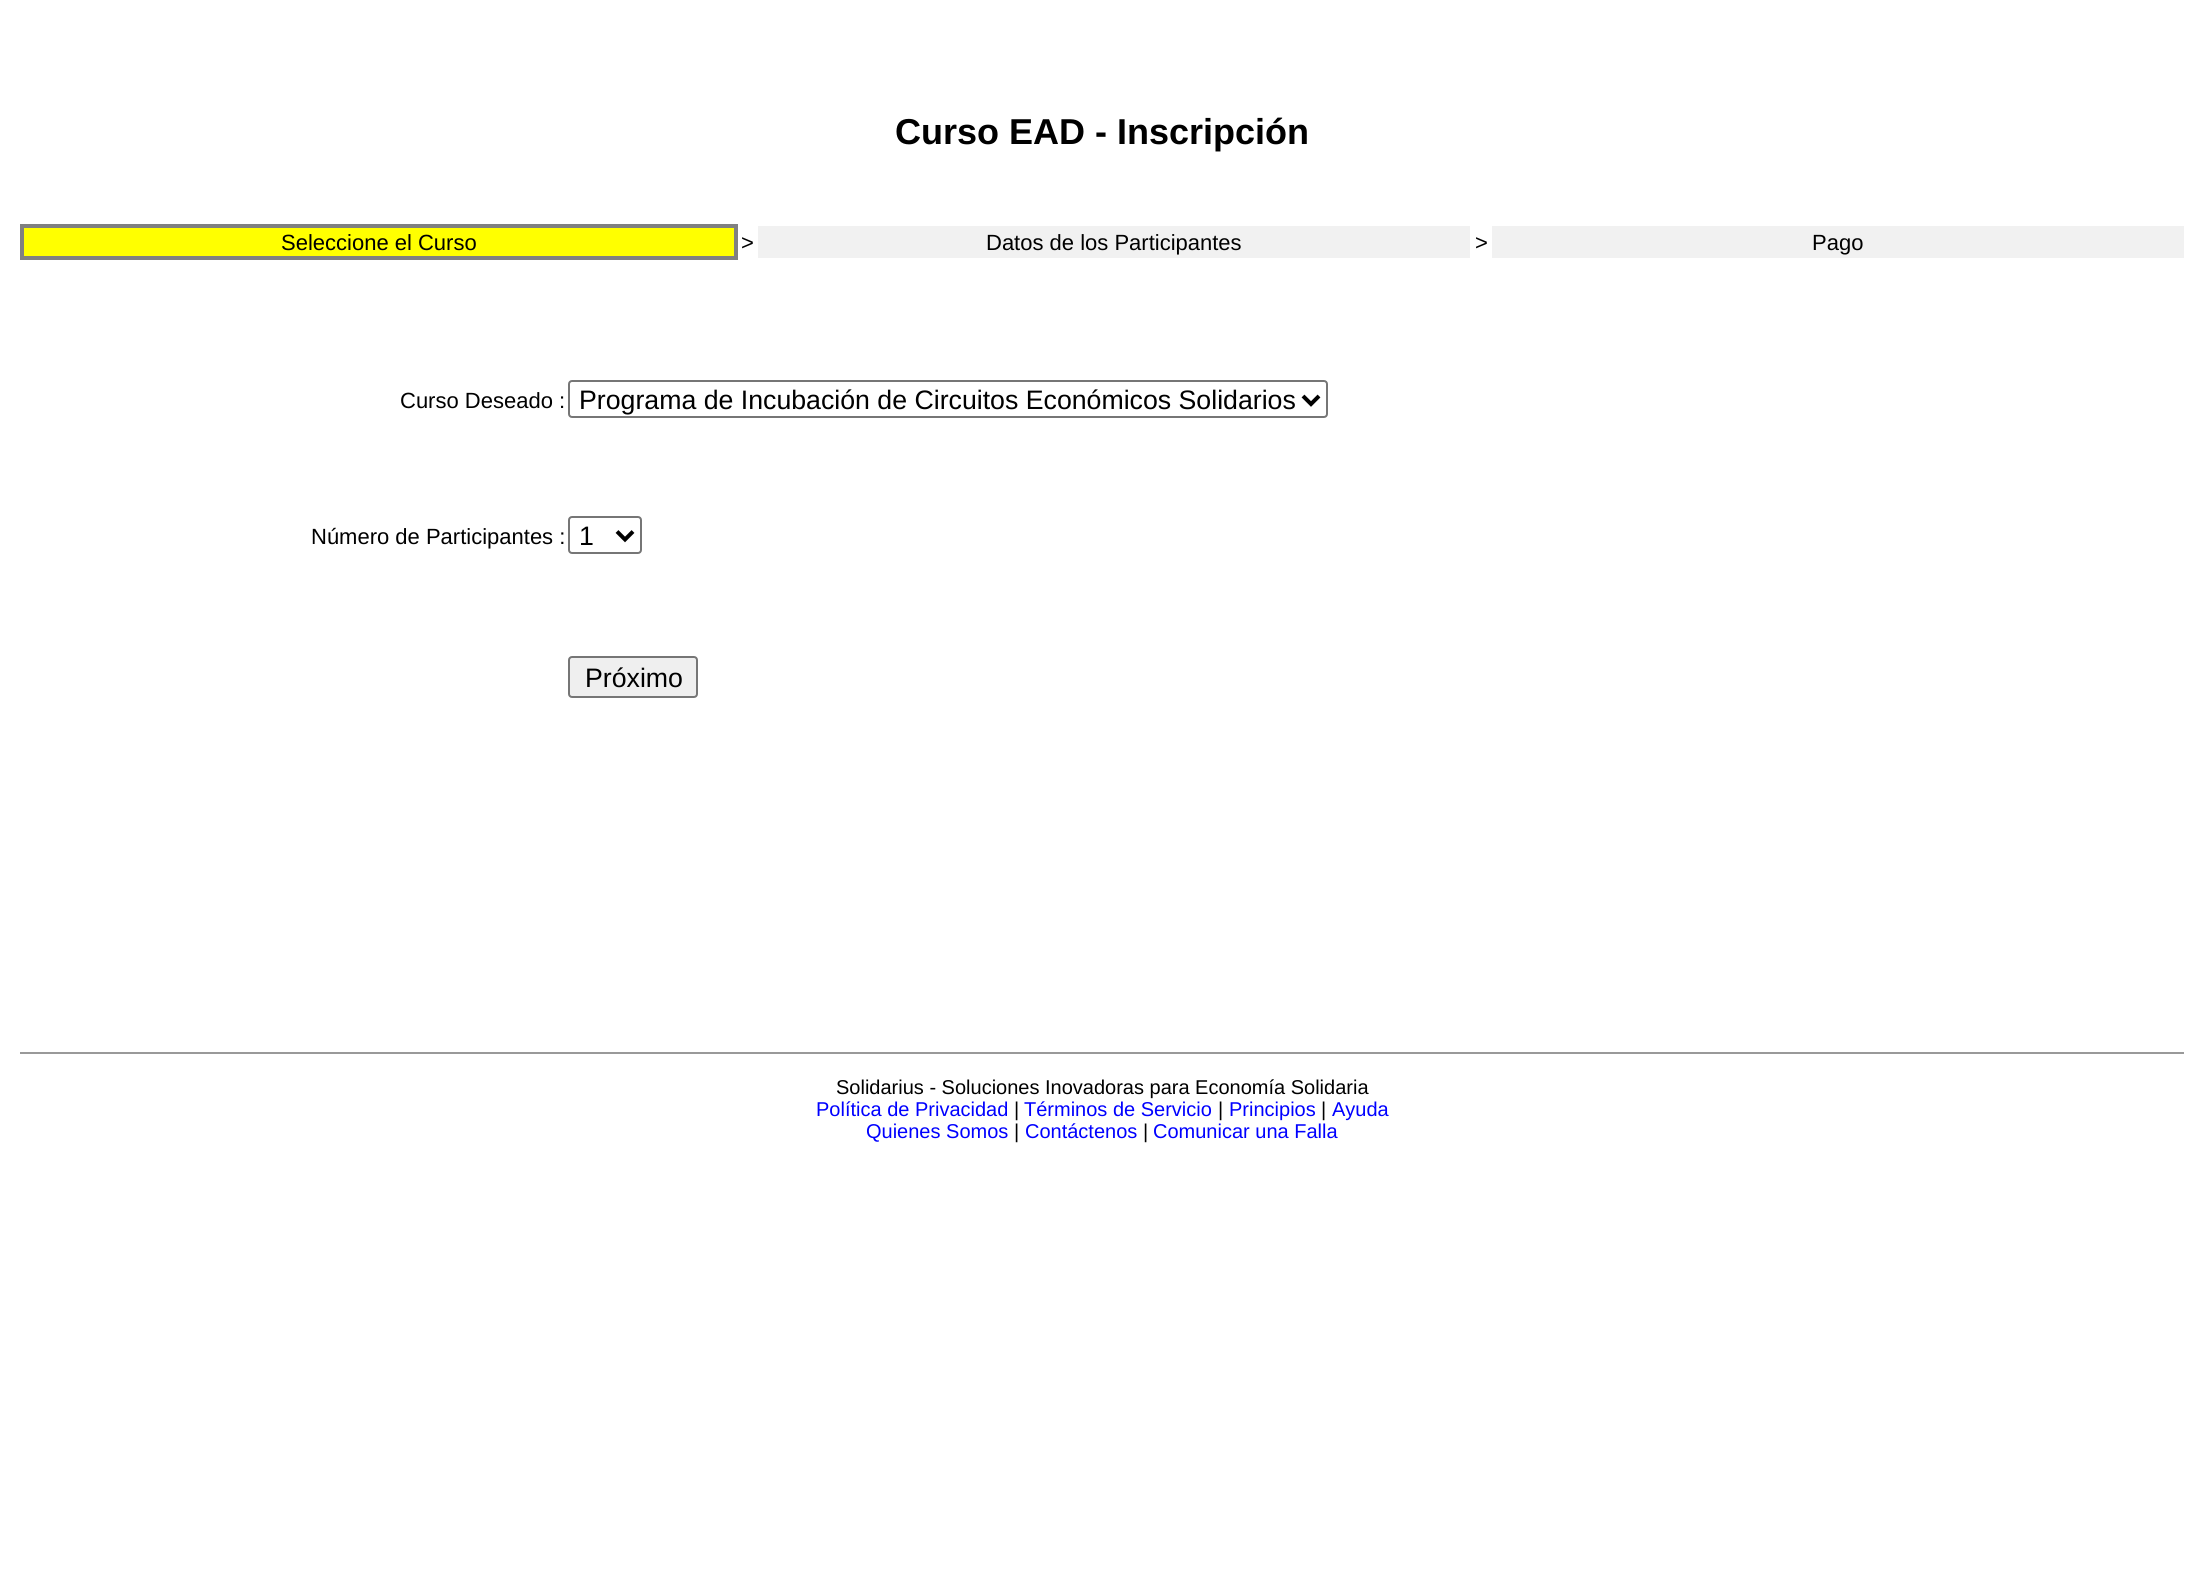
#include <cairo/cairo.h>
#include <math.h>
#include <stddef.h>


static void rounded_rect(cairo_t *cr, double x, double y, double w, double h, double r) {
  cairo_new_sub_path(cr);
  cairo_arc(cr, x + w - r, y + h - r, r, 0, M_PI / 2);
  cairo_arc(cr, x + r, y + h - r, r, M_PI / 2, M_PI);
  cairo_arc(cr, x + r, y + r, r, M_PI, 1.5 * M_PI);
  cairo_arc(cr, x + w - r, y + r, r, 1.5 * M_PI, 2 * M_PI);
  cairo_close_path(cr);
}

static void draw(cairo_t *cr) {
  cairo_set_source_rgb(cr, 1, 1, 1);
  cairo_paint(cr);
  cairo_set_source_rgb(cr, 1, 1, 0);
  cairo_rectangle(cr, 24, 228, 710, 28);
  cairo_fill(cr);
  cairo_set_source_rgb(cr, 128 / 255.0, 128 / 255.0, 128 / 255.0);
  cairo_rectangle(cr, 20, 224, 718, 4);
  cairo_fill(cr);
  cairo_rectangle(cr, 734, 224, 4, 36);
  cairo_fill(cr);
  cairo_rectangle(cr, 20, 256, 718, 4);
  cairo_fill(cr);
  cairo_rectangle(cr, 20, 224, 4, 36);
  cairo_fill(cr);
  cairo_set_source_rgb(cr, 241 / 255.0, 241 / 255.0, 241 / 255.0);
  cairo_rectangle(cr, 758, 226, 712, 32);
  cairo_fill(cr);
  cairo_rectangle(cr, 1492, 226, 692, 32);
  cairo_fill(cr);
  rounded_rect(cr, 569, 381, 758, 36, 3);
  cairo_set_source_rgb(cr, 118 / 255.0, 118 / 255.0, 118 / 255.0);
  cairo_stroke(cr);
  cairo_new_path(cr);
  cairo_move_to(cr, 1303, 396);
  cairo_line_to(cr, 1311, 404);
  cairo_line_to(cr, 1319, 396);
  cairo_set_source_rgb(cr, 0, 0, 0);
  cairo_set_line_width(cr, 4);
  cairo_stroke(cr);
  rounded_rect(cr, 569, 517, 72, 36, 3);
  cairo_set_source_rgb(cr, 118 / 255.0, 118 / 255.0, 118 / 255.0);
  cairo_set_line_width(cr, 2);
  cairo_stroke(cr);
  cairo_new_path(cr);
  cairo_move_to(cr, 617, 531.5);
  cairo_line_to(cr, 625, 539.5);
  cairo_line_to(cr, 633, 531.5);
  cairo_set_source_rgb(cr, 0, 0, 0);
  cairo_set_line_width(cr, 4);
  cairo_stroke(cr);
  cairo_set_source_rgb(cr, 239 / 255.0, 239 / 255.0, 239 / 255.0);
  rounded_rect(cr, 569, 657, 128, 40, 3);
  cairo_fill_preserve(cr);
  cairo_set_source_rgb(cr, 118 / 255.0, 118 / 255.0, 118 / 255.0);
  cairo_set_line_width(cr, 2);
  cairo_stroke(cr);
  cairo_set_source_rgb(cr, 153 / 255.0, 153 / 255.0, 153 / 255.0);
  cairo_rectangle(cr, 20, 1052, 2164, 2);
  cairo_fill(cr);
  cairo_select_font_face(cr, "Liberation Sans", CAIRO_FONT_SLANT_NORMAL, CAIRO_FONT_WEIGHT_BOLD);
  cairo_set_font_size(cr, 36);
  cairo_set_source_rgb(cr, 0, 0, 0);
  cairo_move_to(cr, 895, 144);
  cairo_show_text(cr, "Curso EAD - Inscripción");
  cairo_select_font_face(cr, "Liberation Sans", CAIRO_FONT_SLANT_NORMAL, CAIRO_FONT_WEIGHT_NORMAL);
  cairo_set_font_size(cr, 22);
  cairo_move_to(cr, 281, 250);
  cairo_show_text(cr, "Seleccione el Curso");
  cairo_move_to(cr, 741, 250);
  cairo_show_text(cr, ">");
  cairo_move_to(cr, 986, 250);
  cairo_show_text(cr, "Datos de los Participantes");
  cairo_move_to(cr, 1475, 250);
  cairo_show_text(cr, ">");
  cairo_move_to(cr, 1812, 250);
  cairo_show_text(cr, "Pago");
  cairo_move_to(cr, 400, 408);
  cairo_show_text(cr, "Curso Deseado :");
  cairo_set_font_size(cr, 26.7);
  cairo_move_to(cr, 579, 409);
  cairo_show_text(cr, "Programa de Incubación de Circuitos Económicos Solidarios");
  cairo_set_font_size(cr, 22);
  cairo_move_to(cr, 311, 544);
  cairo_show_text(cr, "Número de Participantes :");
  cairo_set_font_size(cr, 26.7);
  cairo_move_to(cr, 579, 545);
  cairo_show_text(cr, "1");
  cairo_move_to(cr, 585, 687);
  cairo_show_text(cr, "Próximo");
  cairo_set_font_size(cr, 20);
  cairo_move_to(cr, 836, 1094);
  cairo_show_text(cr, "Solidarius - Soluciones Inovadoras para Economía Solidaria");
  cairo_set_source_rgb(cr, 0, 0, 1);
  cairo_move_to(cr, 816, 1116);
  cairo_show_text(cr, "Política de Privacidad");
  cairo_set_source_rgb(cr, 0, 0, 0);
  cairo_move_to(cr, 1014, 1116);
  cairo_show_text(cr, "|");
  cairo_set_source_rgb(cr, 0, 0, 1);
  cairo_move_to(cr, 1024, 1116);
  cairo_show_text(cr, "Términos de Servicio");
  cairo_set_source_rgb(cr, 0, 0, 0);
  cairo_move_to(cr, 1218, 1116);
  cairo_show_text(cr, "|");
  cairo_set_source_rgb(cr, 0, 0, 1);
  cairo_move_to(cr, 1229, 1116);
  cairo_show_text(cr, "Principios");
  cairo_set_source_rgb(cr, 0, 0, 0);
  cairo_move_to(cr, 1321, 1116);
  cairo_show_text(cr, "|");
  cairo_set_source_rgb(cr, 0, 0, 1);
  cairo_move_to(cr, 1332, 1116);
  cairo_show_text(cr, "Ayuda");
  cairo_move_to(cr, 866, 1138);
  cairo_show_text(cr, "Quienes Somos");
  cairo_set_source_rgb(cr, 0, 0, 0);
  cairo_move_to(cr, 1014, 1138);
  cairo_show_text(cr, "|");
  cairo_set_source_rgb(cr, 0, 0, 1);
  cairo_move_to(cr, 1025, 1138);
  cairo_show_text(cr, "Contáctenos");
  cairo_set_source_rgb(cr, 0, 0, 0);
  cairo_move_to(cr, 1143, 1138);
  cairo_show_text(cr, "|");
  cairo_set_source_rgb(cr, 0, 0, 1);
  cairo_move_to(cr, 1153, 1138);
  cairo_show_text(cr, "Comunicar una Falla");
}

int main(void) {
  cairo_surface_t *surface = cairo_image_surface_create(CAIRO_FORMAT_RGB24, 2203, 1570);
  cairo_t *cr = cairo_create(surface);
  cairo_font_options_t *options = cairo_font_options_create();
  cairo_font_options_set_hint_metrics(options, CAIRO_HINT_METRICS_OFF);
  cairo_font_options_set_hint_style(options, CAIRO_HINT_STYLE_NONE);
  cairo_set_font_options(cr, options);
  cairo_set_miter_limit(cr, 4);
  draw(cr);
  cairo_surface_write_to_png(surface, "out.png");
  cairo_font_options_destroy(options);
  cairo_destroy(cr);
  cairo_surface_destroy(surface);
  return 0;
}
